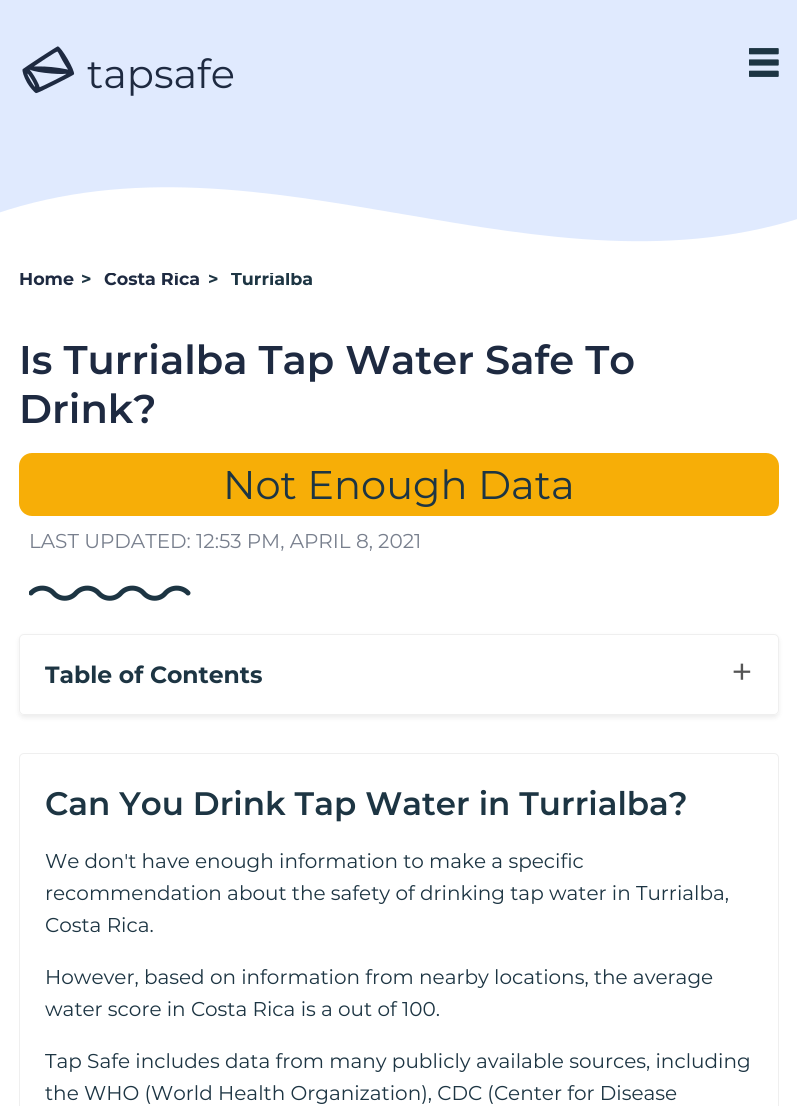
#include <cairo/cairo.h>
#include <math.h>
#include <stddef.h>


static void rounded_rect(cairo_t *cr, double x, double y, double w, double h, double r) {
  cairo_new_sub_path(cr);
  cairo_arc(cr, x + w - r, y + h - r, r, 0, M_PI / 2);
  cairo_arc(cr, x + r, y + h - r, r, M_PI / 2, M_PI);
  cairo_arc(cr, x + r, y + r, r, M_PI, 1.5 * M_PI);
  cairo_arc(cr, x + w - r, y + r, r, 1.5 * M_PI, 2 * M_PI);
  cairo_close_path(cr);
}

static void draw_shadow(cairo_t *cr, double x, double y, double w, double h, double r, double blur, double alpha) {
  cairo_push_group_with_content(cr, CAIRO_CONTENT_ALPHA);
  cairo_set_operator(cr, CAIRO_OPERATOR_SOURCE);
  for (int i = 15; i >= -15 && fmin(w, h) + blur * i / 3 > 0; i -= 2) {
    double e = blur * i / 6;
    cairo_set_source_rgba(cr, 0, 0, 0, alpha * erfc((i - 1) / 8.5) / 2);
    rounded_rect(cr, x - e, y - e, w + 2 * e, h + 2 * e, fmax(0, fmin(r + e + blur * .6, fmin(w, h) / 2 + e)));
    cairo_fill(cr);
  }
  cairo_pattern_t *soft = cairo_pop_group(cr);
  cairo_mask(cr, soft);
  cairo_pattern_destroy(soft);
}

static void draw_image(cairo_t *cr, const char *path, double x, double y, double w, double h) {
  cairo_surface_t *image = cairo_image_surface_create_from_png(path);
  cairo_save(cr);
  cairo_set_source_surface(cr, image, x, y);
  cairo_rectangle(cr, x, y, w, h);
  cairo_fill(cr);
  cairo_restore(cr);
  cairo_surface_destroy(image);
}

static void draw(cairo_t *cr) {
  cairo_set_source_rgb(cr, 1, 1, 1);
  cairo_paint(cr);
  cairo_set_source_rgb(cr, 224 / 255.0, 234 / 255.0, 254 / 255.0);
  cairo_rectangle(cr, 0, 0, 797, 242);
  cairo_fill(cr);
  draw_image(cr, "images/1.png", 22, 46, 53, 48);
  draw_image(cr, "images/2.png", 749, 48, 30, 29);
  cairo_set_source_rgb(cr, 247 / 255.0, 174 / 255.0, 7 / 255.0);
  rounded_rect(cr, 19, 453, 760, 63, 13);
  cairo_fill(cr);
  cairo_save(cr);
  cairo_rectangle(cr, 29, 585, 162, 16);
  cairo_clip(cr);
  cairo_new_path(cr);
  cairo_move_to(cr, 188, 593);
  cairo_curve_to(cr, 182, 586.5, 171.5, 586.5, 165.5, 593);
  cairo_curve_to(cr, 160, 600, 149.5, 600, 143.5, 593);
  cairo_curve_to(cr, 137.5, 586.5, 127, 586.5, 121, 593);
  cairo_curve_to(cr, 115, 600, 104.5, 600, 98.5, 593);
  cairo_curve_to(cr, 92.5, 586.5, 82, 586.5, 76, 593);
  cairo_curve_to(cr, 70, 600, 59.5, 600, 53.5, 593);
  cairo_curve_to(cr, 47.5, 586.5, 37, 586.5, 31, 593);
  cairo_set_source_rgb(cr, 29 / 255.0, 53 / 255.0, 67 / 255.0);
  cairo_set_line_width(cr, 5);
  cairo_set_line_cap(cr, CAIRO_LINE_CAP_ROUND);
  cairo_stroke(cr);
  cairo_restore(cr);
  cairo_save(cr);
  cairo_set_fill_rule(cr, CAIRO_FILL_RULE_EVEN_ODD);
  cairo_new_path(cr);
  cairo_move_to(cr, 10, 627);
  cairo_line_to(cr, 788, 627);
  cairo_line_to(cr, 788, 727);
  cairo_line_to(cr, 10, 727);
  cairo_close_path(cr);
  cairo_move_to(cr, 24, 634);
  cairo_line_to(cr, 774, 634);
  cairo_curve_to(cr, 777, 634, 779, 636, 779, 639);
  cairo_line_to(cr, 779, 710);
  cairo_curve_to(cr, 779, 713, 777, 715, 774, 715);
  cairo_line_to(cr, 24, 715);
  cairo_curve_to(cr, 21, 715, 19, 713, 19, 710);
  cairo_line_to(cr, 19, 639);
  cairo_curve_to(cr, 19, 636, 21, 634, 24, 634);
  cairo_close_path(cr);
  cairo_clip(cr);
  cairo_set_source_rgb(cr, 0, 0, 0);
  draw_shadow(cr, 19, 636, 760, 82, 5, 2.5, 0.07);
  cairo_restore(cr);
  rounded_rect(cr, 19.5, 634.5, 759, 80, 4.5);
  cairo_set_source_rgb(cr, 239 / 255.0, 239 / 255.0, 239 / 255.0);
  cairo_set_line_width(cr, 1);
  cairo_stroke(cr);
  rounded_rect(cr, 19.5, 753.5, 759, 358, 4.5);
  cairo_stroke(cr);
  cairo_select_font_face(cr, "Montserrat", CAIRO_FONT_SLANT_NORMAL, CAIRO_FONT_WEIGHT_NORMAL);
  cairo_set_font_size(cr, 40);
  cairo_set_source_rgb(cr, 30 / 255.0, 42 / 255.0, 65 / 255.0);
  cairo_move_to(cr, 87, 88);
  cairo_show_text(cr, "tapsafe");
  cairo_select_font_face(cr, "Montserrat", CAIRO_FONT_SLANT_NORMAL, CAIRO_FONT_WEIGHT_BOLD);
  cairo_set_font_size(cr, 17.5);
  cairo_move_to(cr, 19, 285);
  cairo_show_text(cr, "Home");
  cairo_set_source_rgb(cr, 29 / 255.0, 53 / 255.0, 67 / 255.0);
  cairo_move_to(cr, 81, 285);
  cairo_show_text(cr, ">");
  cairo_set_source_rgb(cr, 30 / 255.0, 42 / 255.0, 65 / 255.0);
  cairo_move_to(cr, 104, 285);
  cairo_show_text(cr, "Costa Rica");
  cairo_set_source_rgb(cr, 29 / 255.0, 53 / 255.0, 67 / 255.0);
  cairo_move_to(cr, 208, 285);
  cairo_show_text(cr, ">");
  cairo_move_to(cr, 231, 285);
  cairo_show_text(cr, "Turrialba");
  cairo_save(cr);
  cairo_rectangle(cr, 0, 148, 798, 125);
  cairo_clip(cr);
  cairo_set_source_rgb(cr, 1, 1, 1);
  cairo_new_path(cr);
  cairo_move_to(cr, -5, 214);
  cairo_curve_to(cr, 268, 121, 540, 308, 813, 214);
  cairo_line_to(cr, 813, 383);
  cairo_curve_to(cr, 540, 477, 268, 289, -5, 383);
  cairo_close_path(cr);
  cairo_fill(cr);
  cairo_restore(cr);
  cairo_select_font_face(cr, "Montserrat SemiBold", CAIRO_FONT_SLANT_NORMAL, CAIRO_FONT_WEIGHT_NORMAL);
  cairo_set_font_size(cr, 40);
  cairo_set_source_rgb(cr, 30 / 255.0, 42 / 255.0, 65 / 255.0);
  cairo_move_to(cr, 19, 374);
  cairo_show_text(cr, "Is Turrialba Tap Water Safe To");
  cairo_move_to(cr, 19, 423);
  cairo_show_text(cr, "Drink?");
  cairo_select_font_face(cr, "Montserrat", CAIRO_FONT_SLANT_NORMAL, CAIRO_FONT_WEIGHT_NORMAL);
  cairo_set_source_rgb(cr, 29 / 255.0, 53 / 255.0, 67 / 255.0);
  cairo_move_to(cr, 223, 499);
  cairo_show_text(cr, "Not Enough Data");
  cairo_set_font_size(cr, 20);
  cairo_set_source_rgb(cr, 120 / 255.0, 127 / 255.0, 141 / 255.0);
  cairo_move_to(cr, 29, 548);
  cairo_show_text(cr, "LAST UPDATED: 12:53 PM, APRIL 8, 2021");
  cairo_select_font_face(cr, "Montserrat", CAIRO_FONT_SLANT_NORMAL, CAIRO_FONT_WEIGHT_BOLD);
  cairo_set_font_size(cr, 23.5);
  cairo_set_source_rgb(cr, 29 / 255.0, 53 / 255.0, 67 / 255.0);
  cairo_move_to(cr, 45, 683);
  cairo_show_text(cr, "Table of Contents");
  cairo_select_font_face(cr, "Montserrat", CAIRO_FONT_SLANT_NORMAL, CAIRO_FONT_WEIGHT_NORMAL);
  cairo_set_font_size(cr, 38);
  cairo_set_source_rgb(cr, 85 / 255.0, 85 / 255.0, 85 / 255.0);
  cairo_move_to(cr, 731, 685);
  cairo_show_text(cr, "+");
  cairo_select_font_face(cr, "Montserrat SemiBold", CAIRO_FONT_SLANT_NORMAL, CAIRO_FONT_WEIGHT_NORMAL);
  cairo_set_font_size(cr, 32.5);
  cairo_set_source_rgb(cr, 29 / 255.0, 53 / 255.0, 67 / 255.0);
  cairo_move_to(cr, 45, 815);
  cairo_show_text(cr, "Can You Drink Tap Water in Turrialba?");
  cairo_select_font_face(cr, "Montserrat", CAIRO_FONT_SLANT_NORMAL, CAIRO_FONT_WEIGHT_NORMAL);
  cairo_set_font_size(cr, 20);
  cairo_move_to(cr, 45, 868);
  cairo_show_text(cr, "We don't have enough information to make a specific");
  cairo_move_to(cr, 45, 900);
  cairo_show_text(cr, "recommendation about the safety of drinking tap water in Turrialba,");
  cairo_move_to(cr, 45, 932);
  cairo_show_text(cr, "Costa Rica.");
  cairo_move_to(cr, 45, 984);
  cairo_show_text(cr, "However, based on information from nearby locations, the average");
  cairo_move_to(cr, 45, 1016);
  cairo_show_text(cr, "water score in Costa Rica is a out of 100.");
  cairo_move_to(cr, 45, 1068);
  cairo_show_text(cr, "Tap Safe includes data from many publicly available sources, including");
  cairo_move_to(cr, 45, 1100);
  cairo_show_text(cr, "the WHO (World Health Organization), CDC (Center for Disease");
}

int main(void) {
  cairo_surface_t *surface = cairo_image_surface_create(CAIRO_FORMAT_RGB24, 797, 1106);
  cairo_t *cr = cairo_create(surface);
  cairo_font_options_t *options = cairo_font_options_create();
  cairo_font_options_set_hint_metrics(options, CAIRO_HINT_METRICS_OFF);
  cairo_font_options_set_hint_style(options, CAIRO_HINT_STYLE_NONE);
  cairo_set_font_options(cr, options);
  cairo_set_miter_limit(cr, 4);
  draw(cr);
  cairo_surface_write_to_png(surface, "out.png");
  cairo_font_options_destroy(options);
  cairo_destroy(cr);
  cairo_surface_destroy(surface);
  return 0;
}
